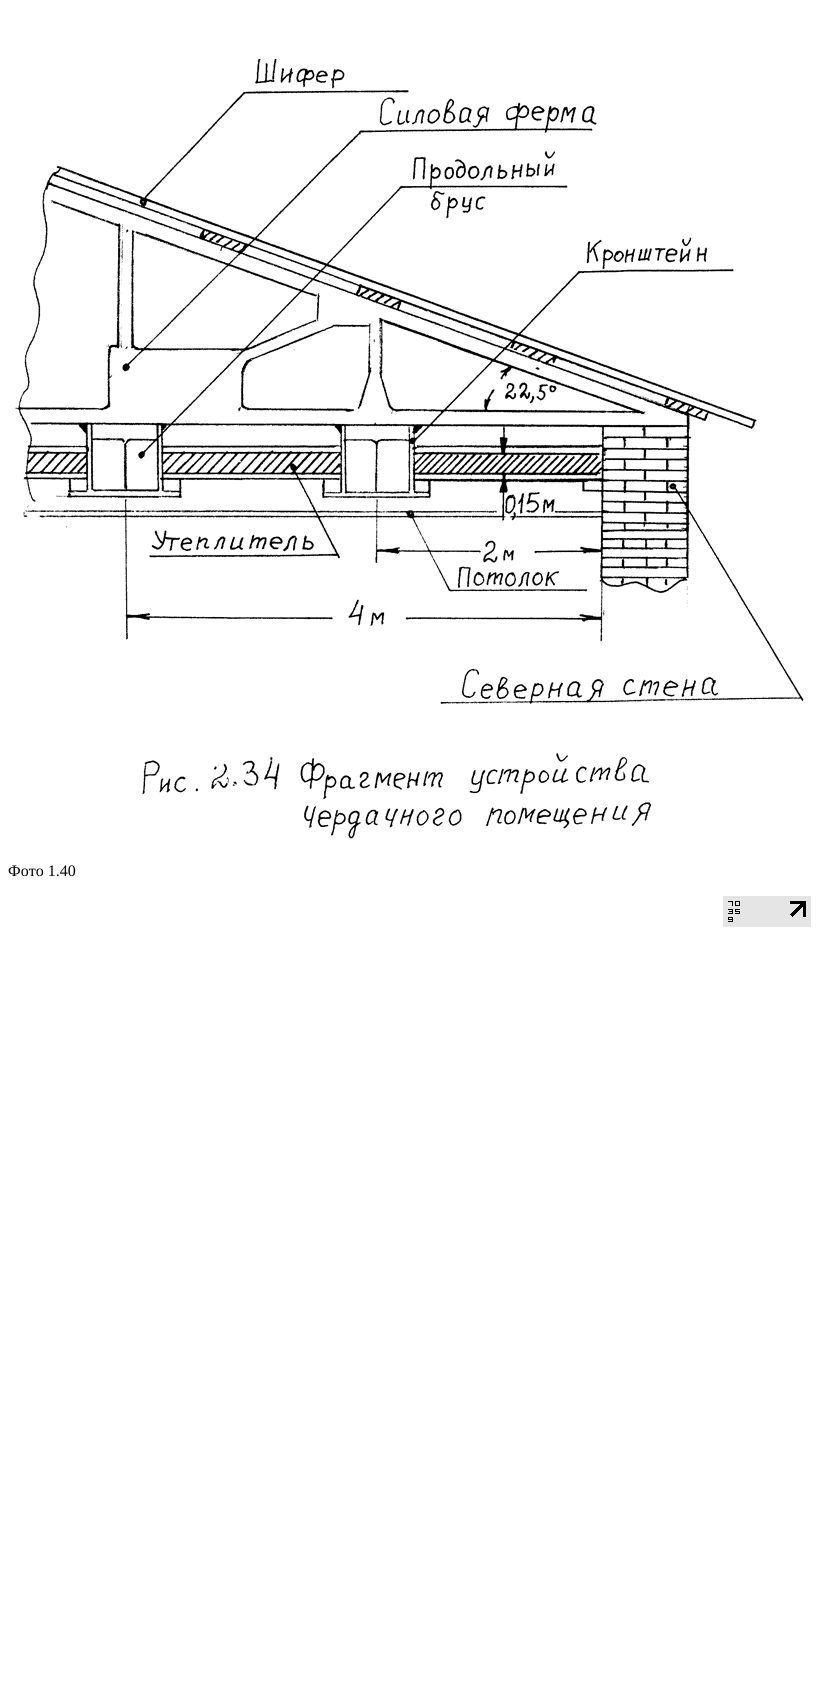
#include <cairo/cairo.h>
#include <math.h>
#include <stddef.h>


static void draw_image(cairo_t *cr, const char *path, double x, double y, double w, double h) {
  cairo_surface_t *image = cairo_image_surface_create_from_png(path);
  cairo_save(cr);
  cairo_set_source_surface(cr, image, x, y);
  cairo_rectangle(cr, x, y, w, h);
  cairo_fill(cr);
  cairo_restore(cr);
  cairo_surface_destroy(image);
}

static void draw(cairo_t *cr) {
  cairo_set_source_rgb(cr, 1, 1, 1);
  cairo_paint(cr);
  draw_image(cr, "images/1.png", 15, 59, 789, 780);
  draw_image(cr, "images/2.png", 723, 896, 88, 31);
  cairo_select_font_face(cr, "Liberation Serif", CAIRO_FONT_SLANT_NORMAL, CAIRO_FONT_WEIGHT_NORMAL);
  cairo_set_font_size(cr, 16);
  cairo_set_source_rgb(cr, 0, 0, 0);
  cairo_move_to(cr, 8, 876);
  cairo_show_text(cr, "Фото 1.40");
}

int main(void) {
  cairo_surface_t *surface = cairo_image_surface_create(CAIRO_FORMAT_RGB24, 819, 1701);
  cairo_t *cr = cairo_create(surface);
  cairo_font_options_t *options = cairo_font_options_create();
  cairo_font_options_set_hint_metrics(options, CAIRO_HINT_METRICS_OFF);
  cairo_font_options_set_hint_style(options, CAIRO_HINT_STYLE_NONE);
  cairo_set_font_options(cr, options);
  cairo_set_miter_limit(cr, 4);
  draw(cr);
  cairo_surface_write_to_png(surface, "out.png");
  cairo_font_options_destroy(options);
  cairo_destroy(cr);
  cairo_surface_destroy(surface);
  return 0;
}
